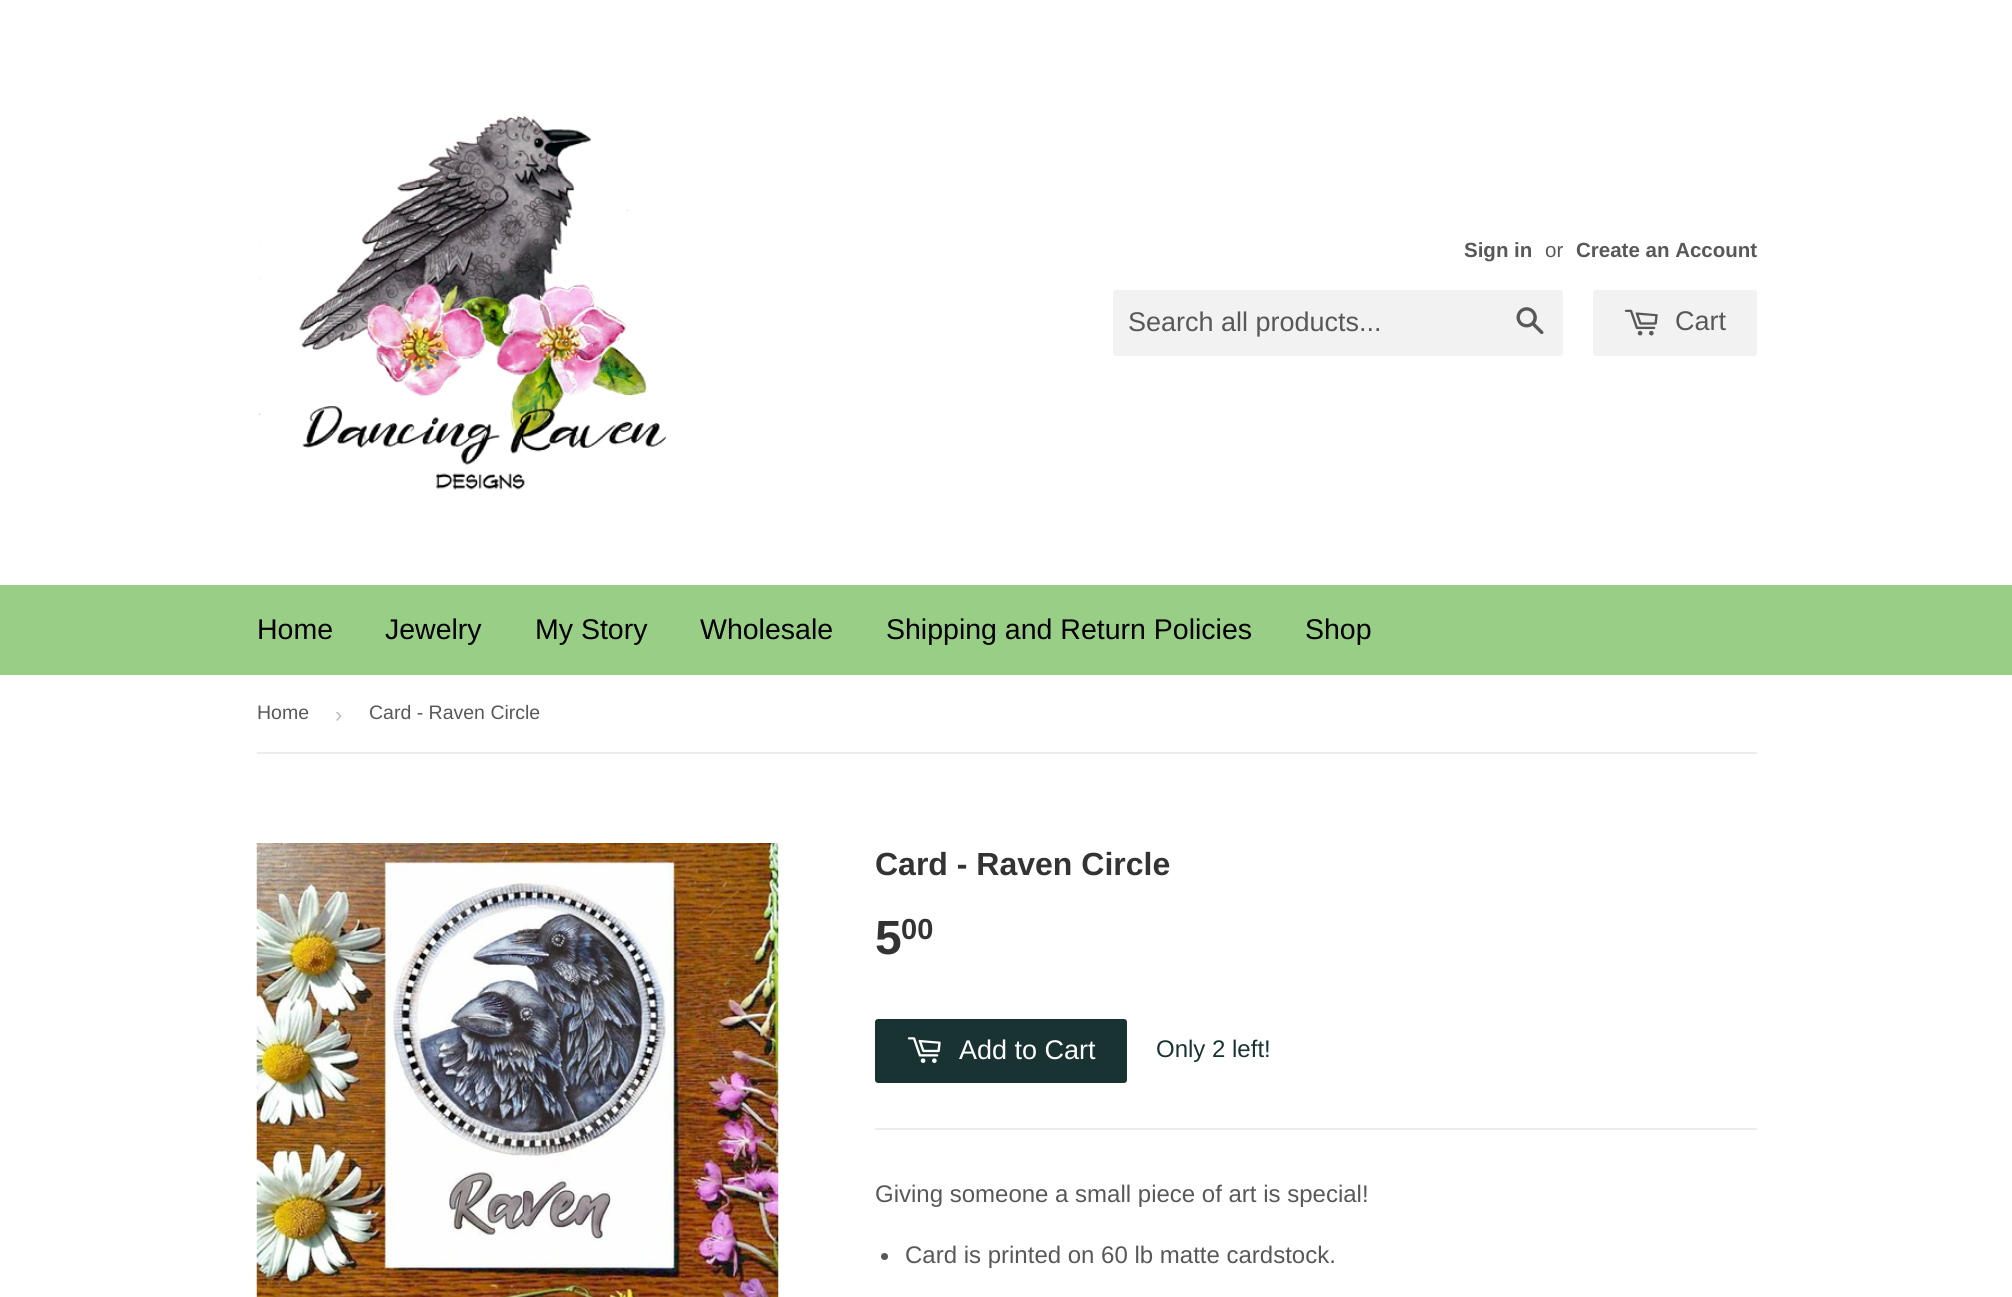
#include <cairo/cairo.h>
#include <math.h>
#include <stddef.h>


static void rounded_rect(cairo_t *cr, double x, double y, double w, double h, double r) {
  cairo_new_sub_path(cr);
  cairo_arc(cr, x + w - r, y + h - r, r, 0, M_PI / 2);
  cairo_arc(cr, x + r, y + h - r, r, M_PI / 2, M_PI);
  cairo_arc(cr, x + r, y + r, r, M_PI, 1.5 * M_PI);
  cairo_arc(cr, x + w - r, y + r, r, 1.5 * M_PI, 2 * M_PI);
  cairo_close_path(cr);
}

static void draw_image(cairo_t *cr, const char *path, double x, double y, double w, double h) {
  cairo_surface_t *image = cairo_image_surface_create_from_png(path);
  cairo_save(cr);
  cairo_set_source_surface(cr, image, x, y);
  cairo_rectangle(cr, x, y, w, h);
  cairo_fill(cr);
  cairo_restore(cr);
  cairo_surface_destroy(image);
}

static void draw(cairo_t *cr) {
  cairo_set_source_rgb(cr, 1, 1, 1);
  cairo_paint(cr);
  draw_image(cr, "images/1.png", 258, 115, 409, 375);
  cairo_set_source_rgb(cr, 242 / 255.0, 242 / 255.0, 242 / 255.0);
  rounded_rect(cr, 1113, 290, 450, 66, 3);
  cairo_fill(cr);
  draw_image(cr, "images/2.png", 1516, 307, 28, 28);
  rounded_rect(cr, 1593, 290, 164, 66, 3);
  cairo_fill(cr);
  draw_image(cr, "images/3.png", 1624, 309, 34, 27);
  cairo_set_source_rgb(cr, 153 / 255.0, 206 / 255.0, 134 / 255.0);
  cairo_rectangle(cr, 0, 585, 2012, 90);
  cairo_fill(cr);
  cairo_set_source_rgb(cr, 236 / 255.0, 236 / 255.0, 236 / 255.0);
  cairo_rectangle(cr, 257, 752, 1500, 2);
  cairo_fill(cr);
  draw_image(cr, "images/4.png", 256, 843, 523, 454);
  cairo_set_source_rgb(cr, 25 / 255.0, 51 / 255.0, 51 / 255.0);
  rounded_rect(cr, 875, 1019, 252, 64, 3);
  cairo_fill(cr);
  draw_image(cr, "images/5.png", 907, 1037, 34, 26);
  cairo_set_source_rgb(cr, 236 / 255.0, 236 / 255.0, 236 / 255.0);
  cairo_rectangle(cr, 875, 1128, 882, 2);
  cairo_fill(cr);
  cairo_set_source_rgb(cr, 88 / 255.0, 88 / 255.0, 88 / 255.0);
  cairo_arc(cr, 884.5, 1256.5, 3.5, 0, 2 * M_PI);
  cairo_fill(cr);
  cairo_select_font_face(cr, "Liberation Sans", CAIRO_FONT_SLANT_NORMAL, CAIRO_FONT_WEIGHT_BOLD);
  cairo_set_font_size(cr, 20.5);
  cairo_move_to(cr, 1464, 257);
  cairo_show_text(cr, "Sign in");
  cairo_select_font_face(cr, "Liberation Sans", CAIRO_FONT_SLANT_NORMAL, CAIRO_FONT_WEIGHT_NORMAL);
  cairo_move_to(cr, 1545, 257);
  cairo_show_text(cr, "or");
  cairo_select_font_face(cr, "Liberation Sans", CAIRO_FONT_SLANT_NORMAL, CAIRO_FONT_WEIGHT_BOLD);
  cairo_move_to(cr, 1576, 257);
  cairo_show_text(cr, "Create an Account");
  cairo_select_font_face(cr, "Liberation Sans", CAIRO_FONT_SLANT_NORMAL, CAIRO_FONT_WEIGHT_NORMAL);
  cairo_set_font_size(cr, 27);
  cairo_move_to(cr, 1128, 331);
  cairo_show_text(cr, "Search all products...");
  cairo_move_to(cr, 1675, 330);
  cairo_show_text(cr, "Cart");
  cairo_set_font_size(cr, 28.5);
  cairo_set_source_rgb(cr, 0, 0, 0);
  cairo_move_to(cr, 257, 639);
  cairo_show_text(cr, "Home");
  cairo_move_to(cr, 385, 639);
  cairo_show_text(cr, "Jewelry");
  cairo_move_to(cr, 535, 639);
  cairo_show_text(cr, "My Story");
  cairo_move_to(cr, 700, 639);
  cairo_show_text(cr, "Wholesale");
  cairo_move_to(cr, 886, 639);
  cairo_show_text(cr, "Shipping and Return Policies");
  cairo_move_to(cr, 1305, 639);
  cairo_show_text(cr, "Shop");
  cairo_set_font_size(cr, 19.5);
  cairo_set_source_rgb(cr, 88 / 255.0, 88 / 255.0, 88 / 255.0);
  cairo_move_to(cr, 257, 719);
  cairo_show_text(cr, "Home");
  cairo_set_font_size(cr, 22);
  cairo_set_source_rgb(cr, 187 / 255.0, 187 / 255.0, 187 / 255.0);
  cairo_move_to(cr, 335, 722);
  cairo_show_text(cr, "›");
  cairo_set_font_size(cr, 19.5);
  cairo_set_source_rgb(cr, 88 / 255.0, 88 / 255.0, 88 / 255.0);
  cairo_move_to(cr, 369, 719);
  cairo_show_text(cr, "Card - Raven Circle");
  cairo_select_font_face(cr, "Liberation Sans", CAIRO_FONT_SLANT_NORMAL, CAIRO_FONT_WEIGHT_BOLD);
  cairo_set_font_size(cr, 32);
  cairo_set_source_rgb(cr, 51 / 255.0, 51 / 255.0, 51 / 255.0);
  cairo_move_to(cr, 875, 875);
  cairo_show_text(cr, "Card - Raven Circle");
  cairo_set_font_size(cr, 48);
  cairo_move_to(cr, 875, 954);
  cairo_show_text(cr, "5");
  cairo_set_font_size(cr, 29);
  cairo_move_to(cr, 901, 939);
  cairo_show_text(cr, "00");
  cairo_select_font_face(cr, "Liberation Sans", CAIRO_FONT_SLANT_NORMAL, CAIRO_FONT_WEIGHT_NORMAL);
  cairo_set_font_size(cr, 27);
  cairo_set_source_rgb(cr, 1, 1, 1);
  cairo_move_to(cr, 959, 1059);
  cairo_show_text(cr, "Add to Cart");
  cairo_set_font_size(cr, 24);
  cairo_set_source_rgb(cr, 25 / 255.0, 51 / 255.0, 51 / 255.0);
  cairo_move_to(cr, 1156, 1057);
  cairo_show_text(cr, "Only 2 left!");
  cairo_set_source_rgb(cr, 88 / 255.0, 88 / 255.0, 88 / 255.0);
  cairo_move_to(cr, 875, 1202);
  cairo_show_text(cr, "Giving someone a small piece of art is special!");
  cairo_move_to(cr, 905, 1263);
  cairo_show_text(cr, "Card is printed on 60 lb matte cardstock.");
}

int main(void) {
  cairo_surface_t *surface = cairo_image_surface_create(CAIRO_FORMAT_RGB24, 2012, 1297);
  cairo_t *cr = cairo_create(surface);
  cairo_font_options_t *options = cairo_font_options_create();
  cairo_font_options_set_hint_metrics(options, CAIRO_HINT_METRICS_OFF);
  cairo_font_options_set_hint_style(options, CAIRO_HINT_STYLE_NONE);
  cairo_set_font_options(cr, options);
  cairo_set_miter_limit(cr, 4);
  draw(cr);
  cairo_surface_write_to_png(surface, "out.png");
  cairo_font_options_destroy(options);
  cairo_destroy(cr);
  cairo_surface_destroy(surface);
  return 0;
}
